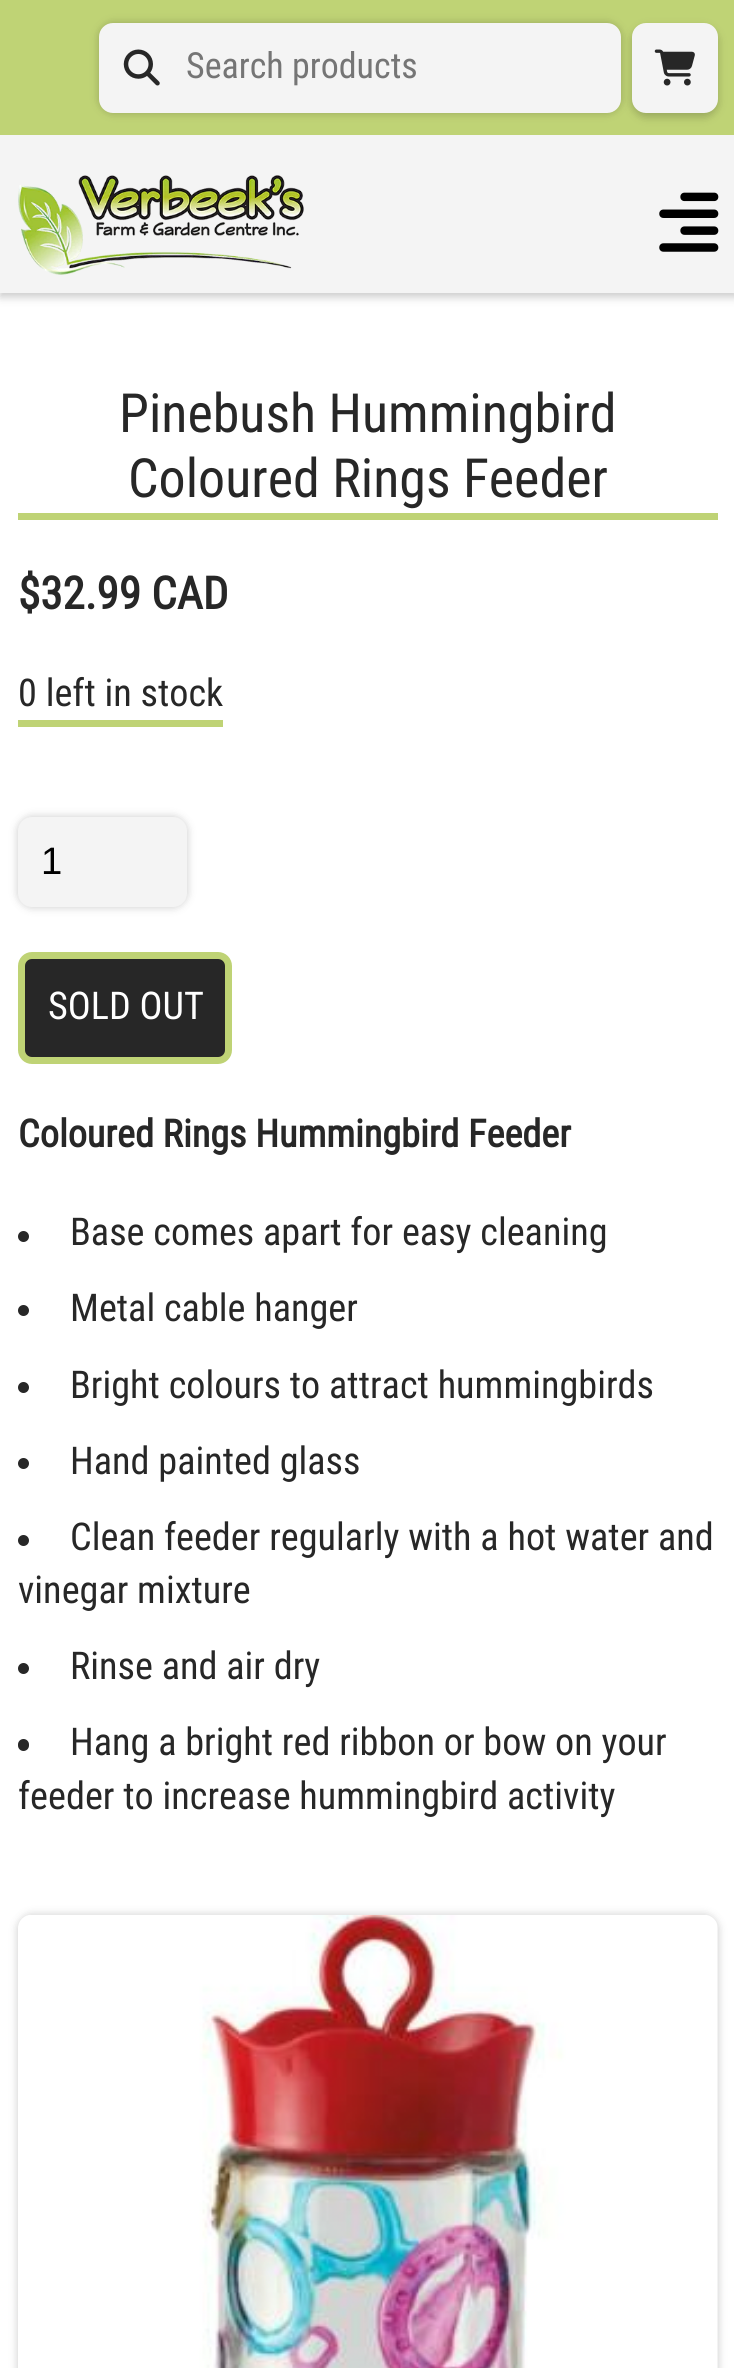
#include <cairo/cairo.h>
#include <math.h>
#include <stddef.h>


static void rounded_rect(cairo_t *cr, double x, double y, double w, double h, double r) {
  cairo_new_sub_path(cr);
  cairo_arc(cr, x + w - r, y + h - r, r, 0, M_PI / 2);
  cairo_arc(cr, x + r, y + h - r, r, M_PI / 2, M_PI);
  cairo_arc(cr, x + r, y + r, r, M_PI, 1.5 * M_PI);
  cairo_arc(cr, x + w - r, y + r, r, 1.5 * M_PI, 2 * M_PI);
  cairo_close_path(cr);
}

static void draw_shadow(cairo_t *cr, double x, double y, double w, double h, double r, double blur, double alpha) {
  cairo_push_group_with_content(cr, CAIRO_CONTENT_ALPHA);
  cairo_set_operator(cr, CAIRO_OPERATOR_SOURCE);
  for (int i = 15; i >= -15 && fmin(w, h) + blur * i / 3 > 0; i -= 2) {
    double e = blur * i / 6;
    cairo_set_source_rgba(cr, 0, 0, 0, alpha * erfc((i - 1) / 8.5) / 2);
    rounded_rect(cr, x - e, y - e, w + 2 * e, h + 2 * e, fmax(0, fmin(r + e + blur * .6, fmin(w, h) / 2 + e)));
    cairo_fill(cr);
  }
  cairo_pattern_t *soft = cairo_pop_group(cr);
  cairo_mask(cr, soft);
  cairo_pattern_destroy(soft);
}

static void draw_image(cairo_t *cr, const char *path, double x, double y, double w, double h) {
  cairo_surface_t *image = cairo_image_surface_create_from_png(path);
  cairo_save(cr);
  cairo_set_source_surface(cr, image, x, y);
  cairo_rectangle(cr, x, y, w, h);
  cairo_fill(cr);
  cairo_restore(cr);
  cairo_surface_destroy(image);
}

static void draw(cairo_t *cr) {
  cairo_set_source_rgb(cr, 1, 1, 1);
  cairo_paint(cr);
  cairo_set_source_rgb(cr, 0, 0, 0);
  draw_shadow(cr, 0, 140, 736, 157, 0, 4.5, 0.21);
  cairo_set_source_rgb(cr, 191 / 255.0, 211 / 255.0, 117 / 255.0);
  cairo_rectangle(cr, 0, 0, 734, 135);
  cairo_fill(cr);
  cairo_set_source_rgb(cr, 0, 0, 0);
  draw_shadow(cr, 99, 23, 522, 90, 14, 4.5, 0.21);
  cairo_set_source_rgb(cr, 244 / 255.0, 244 / 255.0, 244 / 255.0);
  rounded_rect(cr, 100, 24, 520, 88, 13);
  cairo_fill_preserve(cr);
  cairo_stroke(cr);
  draw_image(cr, "images/1.png", 123, 49, 37, 37);
  cairo_set_source_rgb(cr, 0, 0, 0);
  draw_shadow(cr, 632, 27, 86, 90, 14, 4.5, 0.21);
  cairo_set_source_rgb(cr, 244 / 255.0, 244 / 255.0, 244 / 255.0);
  rounded_rect(cr, 632, 23, 86, 90, 14);
  cairo_fill(cr);
  draw_image(cr, "images/2.png", 654, 49, 41, 37);
  cairo_rectangle(cr, 0, 135, 734, 158);
  cairo_fill(cr);
  draw_image(cr, "images/3.png", 18, 175, 286, 100);
  draw_image(cr, "images/4.png", 659, 192, 60, 60);
  cairo_set_source_rgb(cr, 191 / 255.0, 211 / 255.0, 117 / 255.0);
  cairo_rectangle(cr, 18, 513, 700, 7);
  cairo_fill(cr);
  cairo_rectangle(cr, 18, 720, 205, 7);
  cairo_fill(cr);
  cairo_set_source_rgb(cr, 0, 0, 0);
  draw_shadow(cr, 18, 817, 169, 90, 14, 4.5, 0.21);
  cairo_set_source_rgb(cr, 244 / 255.0, 244 / 255.0, 244 / 255.0);
  rounded_rect(cr, 18, 817, 169, 90, 14);
  cairo_fill(cr);
  cairo_set_source_rgb(cr, 39 / 255.0, 39 / 255.0, 39 / 255.0);
  rounded_rect(cr, 21.5, 955.5, 207, 105, 10.5);
  cairo_fill_preserve(cr);
  cairo_set_source_rgb(cr, 191 / 255.0, 211 / 255.0, 117 / 255.0);
  cairo_set_line_width(cr, 7);
  cairo_stroke(cr);
  cairo_set_source_rgb(cr, 39 / 255.0, 39 / 255.0, 39 / 255.0);
  cairo_arc(cr, 23.5, 1236.5, 5.5, 0, 2 * M_PI);
  cairo_fill(cr);
  cairo_arc(cr, 23.5, 1310.5, 5.5, 0, 2 * M_PI);
  cairo_fill(cr);
  cairo_arc(cr, 23.5, 1387.5, 5.5, 0, 2 * M_PI);
  cairo_fill(cr);
  cairo_arc(cr, 23.5, 1463.5, 5.5, 0, 2 * M_PI);
  cairo_fill(cr);
  cairo_arc(cr, 23.5, 1540.5, 5.5, 0, 2 * M_PI);
  cairo_fill(cr);
  cairo_arc(cr, 23.5, 1668.5, 5.5, 0, 2 * M_PI);
  cairo_fill(cr);
  rounded_rect(cr, 18, 1739, 11, 12, 5.5);
  cairo_fill(cr);
  cairo_set_source_rgb(cr, 0, 0, 0);
  draw_shadow(cr, 18, 1915, 700, 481, 14, 4.5, 0.21);
  draw_image(cr, "images/5.png", 18, 1914, 700, 454);
  cairo_select_font_face(cr, "Roboto Condensed", CAIRO_FONT_SLANT_NORMAL, CAIRO_FONT_WEIGHT_NORMAL);
  cairo_set_font_size(cr, 36);
  cairo_set_source_rgb(cr, 117 / 255.0, 117 / 255.0, 117 / 255.0);
  cairo_move_to(cr, 186, 78);
  cairo_show_text(cr, "Search products");
  cairo_set_font_size(cr, 54);
  cairo_set_source_rgb(cr, 39 / 255.0, 39 / 255.0, 39 / 255.0);
  cairo_move_to(cr, 119, 432);
  cairo_show_text(cr, "Pinebush Hummingbird");
  cairo_move_to(cr, 128, 497);
  cairo_show_text(cr, "Coloured Rings Feeder");
  cairo_select_font_face(cr, "Roboto Condensed", CAIRO_FONT_SLANT_NORMAL, CAIRO_FONT_WEIGHT_BOLD);
  cairo_set_font_size(cr, 45);
  cairo_move_to(cr, 18, 609);
  cairo_show_text(cr, "$32.99 CAD");
  cairo_select_font_face(cr, "Roboto Condensed", CAIRO_FONT_SLANT_NORMAL, CAIRO_FONT_WEIGHT_NORMAL);
  cairo_set_font_size(cr, 38.25);
  cairo_move_to(cr, 18, 706);
  cairo_show_text(cr, "0 left in stock");
  cairo_select_font_face(cr, "Liberation Sans", CAIRO_FONT_SLANT_NORMAL, CAIRO_FONT_WEIGHT_NORMAL);
  cairo_set_source_rgb(cr, 0, 0, 0);
  cairo_move_to(cr, 41, 874);
  cairo_show_text(cr, "1");
  cairo_select_font_face(cr, "Roboto Condensed", CAIRO_FONT_SLANT_NORMAL, CAIRO_FONT_WEIGHT_NORMAL);
  cairo_set_source_rgb(cr, 1, 1, 1);
  cairo_move_to(cr, 48, 1019);
  cairo_show_text(cr, "SOLD OUT");
  cairo_select_font_face(cr, "Roboto Condensed", CAIRO_FONT_SLANT_NORMAL, CAIRO_FONT_WEIGHT_BOLD);
  cairo_set_source_rgb(cr, 39 / 255.0, 39 / 255.0, 39 / 255.0);
  cairo_move_to(cr, 18, 1147);
  cairo_show_text(cr, "Coloured Rings Hummingbird Feeder");
  cairo_select_font_face(cr, "Roboto Condensed", CAIRO_FONT_SLANT_NORMAL, CAIRO_FONT_WEIGHT_NORMAL);
  cairo_move_to(cr, 70, 1245);
  cairo_show_text(cr, "Base comes apart for easy cleaning");
  cairo_move_to(cr, 70, 1321);
  cairo_show_text(cr, "Metal cable hanger");
  cairo_move_to(cr, 70, 1398);
  cairo_show_text(cr, "Bright colours to attract hummingbirds");
  cairo_move_to(cr, 70, 1474);
  cairo_show_text(cr, "Hand painted glass");
  cairo_move_to(cr, 70, 1550);
  cairo_show_text(cr, "Clean feeder regularly with a hot water and");
  cairo_move_to(cr, 18, 1603);
  cairo_show_text(cr, "vinegar mixture");
  cairo_move_to(cr, 70, 1679);
  cairo_show_text(cr, "Rinse and air dry");
  cairo_move_to(cr, 70, 1755);
  cairo_show_text(cr, "Hang a bright red ribbon or bow on your");
  cairo_move_to(cr, 18, 1809);
  cairo_show_text(cr, "feeder to increase hummingbird activity");
}

int main(void) {
  cairo_surface_t *surface = cairo_image_surface_create(CAIRO_FORMAT_RGB24, 734, 2368);
  cairo_t *cr = cairo_create(surface);
  cairo_font_options_t *options = cairo_font_options_create();
  cairo_font_options_set_hint_metrics(options, CAIRO_HINT_METRICS_OFF);
  cairo_font_options_set_hint_style(options, CAIRO_HINT_STYLE_NONE);
  cairo_set_font_options(cr, options);
  cairo_set_miter_limit(cr, 4);
  draw(cr);
  cairo_surface_write_to_png(surface, "out.png");
  cairo_font_options_destroy(options);
  cairo_destroy(cr);
  cairo_surface_destroy(surface);
  return 0;
}
